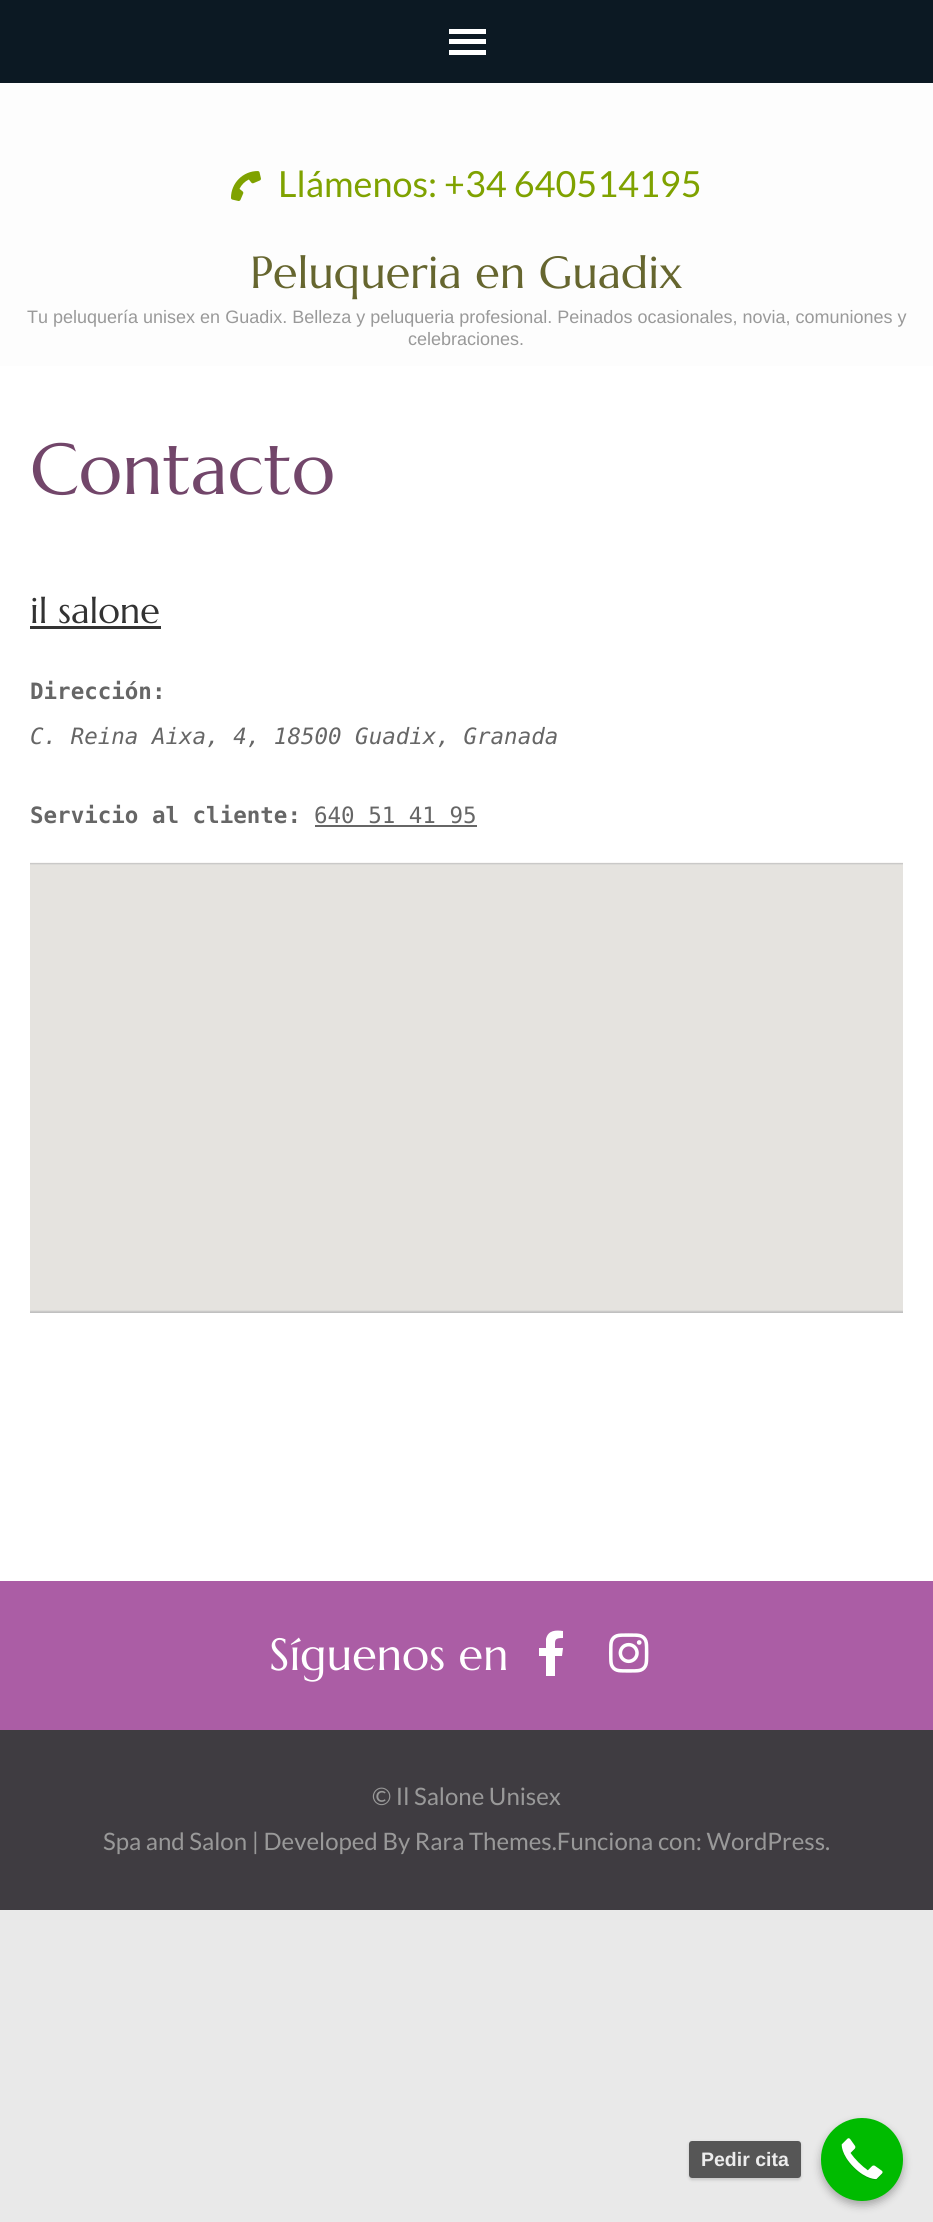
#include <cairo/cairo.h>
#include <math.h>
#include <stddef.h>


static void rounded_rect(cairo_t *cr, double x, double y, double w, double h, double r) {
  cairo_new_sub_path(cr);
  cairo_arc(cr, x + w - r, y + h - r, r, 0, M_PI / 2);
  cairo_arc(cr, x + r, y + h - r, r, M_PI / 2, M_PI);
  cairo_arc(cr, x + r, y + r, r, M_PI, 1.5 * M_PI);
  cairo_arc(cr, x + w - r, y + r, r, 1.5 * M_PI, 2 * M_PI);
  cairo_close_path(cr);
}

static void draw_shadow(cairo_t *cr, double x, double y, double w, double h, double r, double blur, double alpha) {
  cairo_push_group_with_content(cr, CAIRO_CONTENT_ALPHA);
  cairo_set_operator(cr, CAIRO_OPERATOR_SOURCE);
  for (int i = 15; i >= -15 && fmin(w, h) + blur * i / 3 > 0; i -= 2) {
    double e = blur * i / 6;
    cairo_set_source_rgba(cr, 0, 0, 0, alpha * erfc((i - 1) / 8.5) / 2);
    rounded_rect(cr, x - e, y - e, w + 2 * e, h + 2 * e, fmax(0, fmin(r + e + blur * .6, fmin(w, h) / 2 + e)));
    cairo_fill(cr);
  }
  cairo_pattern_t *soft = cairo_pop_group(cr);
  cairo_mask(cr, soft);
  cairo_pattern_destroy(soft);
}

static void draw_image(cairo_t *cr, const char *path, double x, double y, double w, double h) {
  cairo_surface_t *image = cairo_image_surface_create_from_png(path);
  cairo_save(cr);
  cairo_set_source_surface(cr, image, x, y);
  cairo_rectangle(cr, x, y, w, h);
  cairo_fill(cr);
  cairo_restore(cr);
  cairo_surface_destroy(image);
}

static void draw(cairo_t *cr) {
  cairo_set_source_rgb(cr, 233 / 255.0, 233 / 255.0, 233 / 255.0);
  cairo_paint(cr);
  cairo_set_source_rgb(cr, 12 / 255.0, 25 / 255.0, 35 / 255.0);
  cairo_rectangle(cr, 0, 0, 933, 83);
  cairo_fill(cr);
  cairo_set_source_rgb(cr, 1, 1, 1);
  cairo_rectangle(cr, 449, 29, 37, 5);
  cairo_fill(cr);
  cairo_rectangle(cr, 449, 39, 37, 5);
  cairo_fill(cr);
  cairo_rectangle(cr, 449, 50, 37, 5);
  cairo_fill(cr);
  cairo_rectangle(cr, 0, 366, 933, 1215);
  cairo_fill(cr);
  cairo_set_source_rgb(cr, 253 / 255.0, 253 / 255.0, 253 / 255.0);
  cairo_rectangle(cr, 0, 83, 933, 283);
  cairo_fill(cr);
  draw_image(cr, "images/1.png", 231, 171, 30, 30);
  cairo_set_source_rgb(cr, 51 / 255.0, 51 / 255.0, 51 / 255.0);
  cairo_rectangle(cr, 30, 626, 131, 3);
  cairo_fill(cr);
  cairo_set_source_rgb(cr, 102 / 255.0, 102 / 255.0, 102 / 255.0);
  cairo_rectangle(cr, 315, 825, 162, 2);
  cairo_fill(cr);
  draw_image(cr, "images/2.png", 30, 862, 873, 451);
  cairo_set_source_rgb(cr, 171 / 255.0, 93 / 255.0, 165 / 255.0);
  cairo_rectangle(cr, 0, 1581, 933, 149);
  cairo_fill(cr);
  cairo_set_source_rgb(cr, 1, 1, 1);
  cairo_new_path(cr);
  cairo_move_to(cr, 562, 1656);
  cairo_line_to(cr, 563, 1648);
  cairo_line_to(cr, 555, 1648);
  cairo_curve_to(cr, 555, 1640, 554, 1638, 563, 1638);
  cairo_line_to(cr, 563, 1631);
  cairo_curve_to(cr, 556, 1630, 548, 1630, 546, 1639);
  cairo_line_to(cr, 546, 1648);
  cairo_line_to(cr, 539, 1648);
  cairo_line_to(cr, 539, 1656);
  cairo_line_to(cr, 546, 1656);
  cairo_line_to(cr, 546, 1676);
  cairo_line_to(cr, 555, 1676);
  cairo_line_to(cr, 555, 1656);
  cairo_close_path(cr);
  cairo_fill(cr);
  draw_image(cr, "images/3.png", 609, 1633, 40, 40);
  cairo_set_source_rgb(cr, 63 / 255.0, 60 / 255.0, 65 / 255.0);
  cairo_rectangle(cr, 0, 1730, 933, 180);
  cairo_fill(cr);
  cairo_set_source_rgb(cr, 0, 0, 0);
  draw_shadow(cr, 821, 2123, 82, 82, 41, 4.5, 0.3);
  cairo_set_source_rgb(cr, 0, 187 / 255.0, 0);
  rounded_rect(cr, 821, 2118, 82, 83, 41);
  cairo_fill(cr);
  draw_image(cr, "images/4.png", 841, 2138, 42, 42);
  cairo_save(cr);
  cairo_set_fill_rule(cr, CAIRO_FILL_RULE_EVEN_ODD);
  cairo_new_path(cr);
  cairo_move_to(cr, 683, 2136);
  cairo_line_to(cr, 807, 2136);
  cairo_line_to(cr, 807, 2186);
  cairo_line_to(cr, 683, 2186);
  cairo_close_path(cr);
  cairo_move_to(cr, 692, 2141);
  cairo_line_to(cr, 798, 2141);
  cairo_curve_to(cr, 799.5, 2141, 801, 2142.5, 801, 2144);
  cairo_line_to(cr, 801, 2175);
  cairo_curve_to(cr, 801, 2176.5, 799.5, 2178, 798, 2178);
  cairo_line_to(cr, 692, 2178);
  cairo_curve_to(cr, 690.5, 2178, 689, 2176.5, 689, 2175);
  cairo_line_to(cr, 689, 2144);
  cairo_curve_to(cr, 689, 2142.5, 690.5, 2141, 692, 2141);
  cairo_close_path(cr);
  cairo_clip(cr);
  cairo_set_source_rgb(cr, 0, 0, 0);
  draw_shadow(cr, 689, 2142, 112, 38, 3, 1.5, 0.15);
  cairo_restore(cr);
  cairo_set_source_rgba(cr, 70 / 255.0, 70 / 255.0, 70 / 255.0, 0.9);
  rounded_rect(cr, 689, 2141, 112, 37, 3);
  cairo_fill(cr);
  cairo_select_font_face(cr, "Lato", CAIRO_FONT_SLANT_NORMAL, CAIRO_FONT_WEIGHT_NORMAL);
  cairo_set_font_size(cr, 36);
  cairo_set_source_rgb(cr, 127 / 255.0, 162 / 255.0, 0);
  cairo_move_to(cr, 278, 197);
  cairo_show_text(cr, "Llámenos: +34 640514195");
  cairo_select_font_face(cr, "Marcellus", CAIRO_FONT_SLANT_NORMAL, CAIRO_FONT_WEIGHT_NORMAL);
  cairo_set_font_size(cr, 45);
  cairo_set_source_rgb(cr, 102 / 255.0, 102 / 255.0, 47 / 255.0);
  cairo_move_to(cr, 250, 288);
  cairo_show_text(cr, "Peluqueria en Guadix");
  cairo_select_font_face(cr, "Liberation Sans", CAIRO_FONT_SLANT_NORMAL, CAIRO_FONT_WEIGHT_NORMAL);
  cairo_set_font_size(cr, 18);
  cairo_set_source_rgb(cr, 153 / 255.0, 153 / 255.0, 153 / 255.0);
  cairo_move_to(cr, 27, 323);
  cairo_show_text(cr, "Tu peluquería unisex en Guadix. Belleza y peluqueria profesional. Peinados ocasionales, novia, comuniones y");
  cairo_move_to(cr, 408, 345);
  cairo_show_text(cr, "celebraciones.");
  cairo_select_font_face(cr, "Marcellus", CAIRO_FONT_SLANT_NORMAL, CAIRO_FONT_WEIGHT_NORMAL);
  cairo_set_font_size(cr, 72);
  cairo_set_source_rgb(cr, 114 / 255.0, 70 / 255.0, 106 / 255.0);
  cairo_move_to(cr, 30, 494);
  cairo_show_text(cr, "Contacto");
  cairo_set_font_size(cr, 36);
  cairo_set_source_rgb(cr, 51 / 255.0, 51 / 255.0, 51 / 255.0);
  cairo_move_to(cr, 30, 623);
  cairo_show_text(cr, "il salone");
  cairo_select_font_face(cr, "DejaVu Sans Mono", CAIRO_FONT_SLANT_NORMAL, CAIRO_FONT_WEIGHT_BOLD);
  cairo_set_font_size(cr, 22.5);
  cairo_set_source_rgb(cr, 102 / 255.0, 102 / 255.0, 102 / 255.0);
  cairo_move_to(cr, 30, 699);
  cairo_show_text(cr, "Dirección:");
  cairo_select_font_face(cr, "DejaVu Sans Mono", CAIRO_FONT_SLANT_ITALIC, CAIRO_FONT_WEIGHT_NORMAL);
  cairo_move_to(cr, 30, 744);
  cairo_show_text(cr, "C. Reina Aixa, 4, 18500 Guadix, Granada");
  cairo_select_font_face(cr, "DejaVu Sans Mono", CAIRO_FONT_SLANT_NORMAL, CAIRO_FONT_WEIGHT_BOLD);
  cairo_move_to(cr, 30, 823);
  cairo_show_text(cr, "Servicio al cliente:");
  cairo_select_font_face(cr, "DejaVu Sans Mono", CAIRO_FONT_SLANT_NORMAL, CAIRO_FONT_WEIGHT_NORMAL);
  cairo_move_to(cr, 314, 823);
  cairo_show_text(cr, "640 51 41 95");
  cairo_select_font_face(cr, "Marcellus", CAIRO_FONT_SLANT_NORMAL, CAIRO_FONT_WEIGHT_NORMAL);
  cairo_set_font_size(cr, 45);
  cairo_set_source_rgb(cr, 1, 1, 1);
  cairo_move_to(cr, 269, 1670);
  cairo_show_text(cr, "Síguenos en");
  cairo_select_font_face(cr, "Lato", CAIRO_FONT_SLANT_NORMAL, CAIRO_FONT_WEIGHT_NORMAL);
  cairo_set_font_size(cr, 24);
  cairo_set_source_rgb(cr, 153 / 255.0, 153 / 255.0, 153 / 255.0);
  cairo_move_to(cr, 372, 1805);
  cairo_show_text(cr, "© Il Salone Unisex");
  cairo_move_to(cr, 103, 1850);
  cairo_show_text(cr, "Spa and Salon | Developed By Rara Themes.Funciona con: WordPress.");
  cairo_select_font_face(cr, "Liberation Sans", CAIRO_FONT_SLANT_NORMAL, CAIRO_FONT_WEIGHT_BOLD);
  cairo_set_font_size(cr, 19.5);
  cairo_set_source_rgb(cr, 236 / 255.0, 236 / 255.0, 236 / 255.0);
  cairo_move_to(cr, 701, 2166);
  cairo_show_text(cr, "Pedir cita");
}

int main(void) {
  cairo_surface_t *surface = cairo_image_surface_create(CAIRO_FORMAT_RGB24, 933, 2222);
  cairo_t *cr = cairo_create(surface);
  cairo_font_options_t *options = cairo_font_options_create();
  cairo_font_options_set_hint_metrics(options, CAIRO_HINT_METRICS_OFF);
  cairo_font_options_set_hint_style(options, CAIRO_HINT_STYLE_NONE);
  cairo_set_font_options(cr, options);
  cairo_set_miter_limit(cr, 4);
  draw(cr);
  cairo_surface_write_to_png(surface, "out.png");
  cairo_font_options_destroy(options);
  cairo_destroy(cr);
  cairo_surface_destroy(surface);
  return 0;
}
